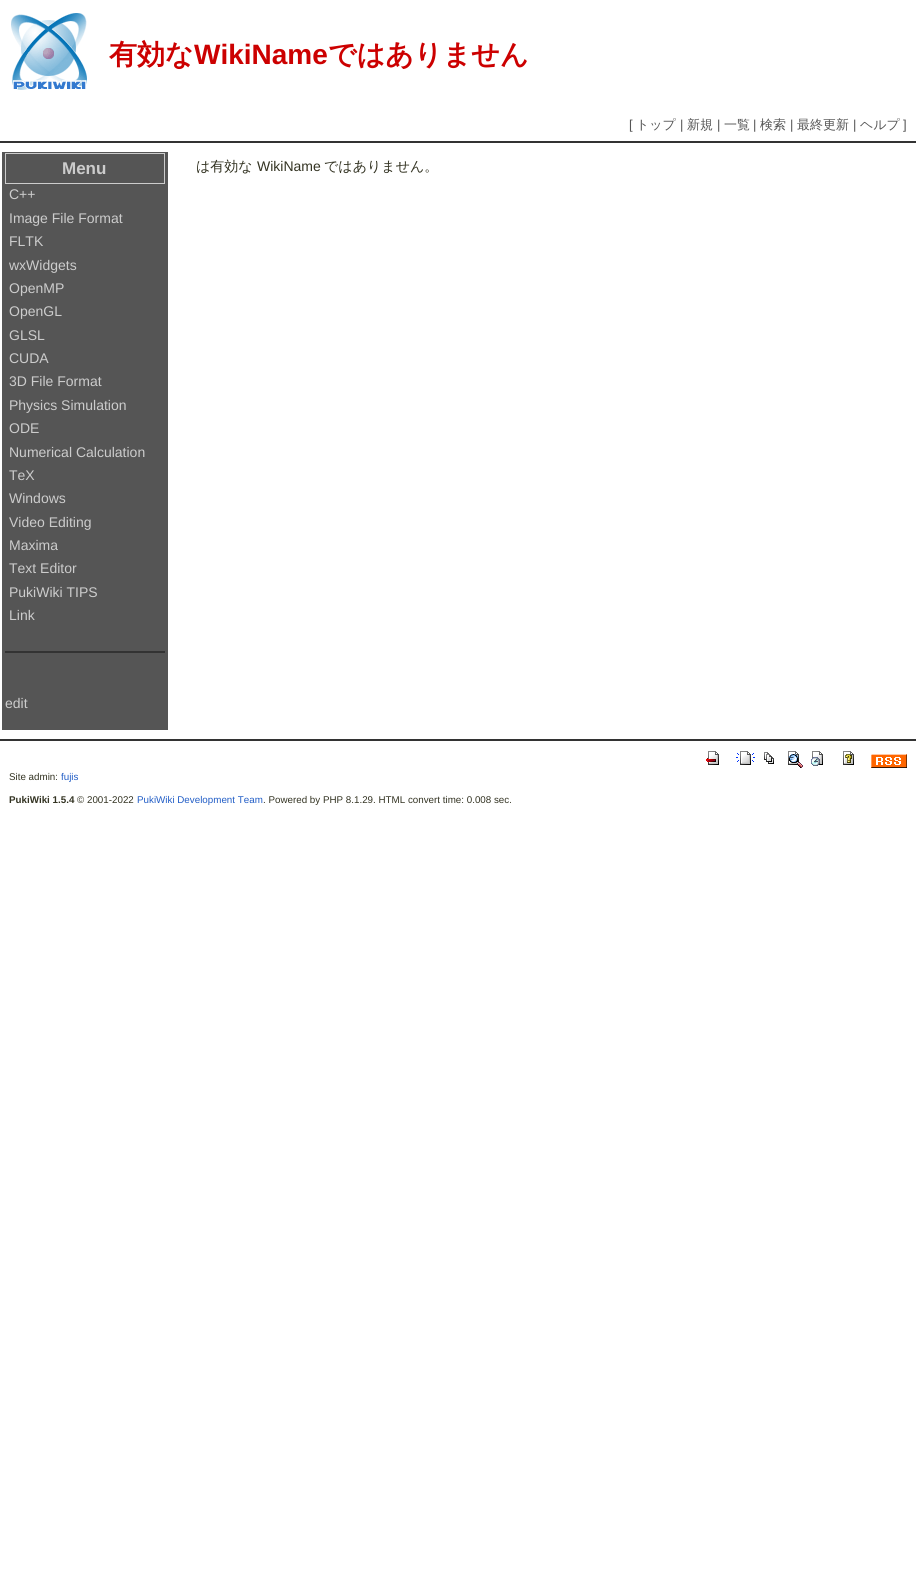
#include <cairo/cairo.h>
#include <math.h>
#include <stddef.h>


static void draw_image(cairo_t *cr, const char *path, double x, double y, double w, double h) {
  cairo_surface_t *image = cairo_image_surface_create_from_png(path);
  cairo_save(cr);
  cairo_set_source_surface(cr, image, x, y);
  cairo_rectangle(cr, x, y, w, h);
  cairo_fill(cr);
  cairo_restore(cr);
  cairo_surface_destroy(image);
}

static void draw(cairo_t *cr) {
  cairo_set_source_rgb(cr, 1, 1, 1);
  cairo_paint(cr);
  draw_image(cr, "images/1.png", 11, 13, 76, 77);
  cairo_set_source_rgb(cr, 51 / 255.0, 51 / 255.0, 51 / 255.0);
  cairo_rectangle(cr, 0, 141, 916, 2);
  cairo_fill(cr);
  cairo_set_source_rgb(cr, 85 / 255.0, 85 / 255.0, 85 / 255.0);
  cairo_rectangle(cr, 2, 152, 166, 578);
  cairo_fill(cr);
  cairo_rectangle(cr, 5.5, 153.5, 159, 30);
  cairo_set_source_rgb(cr, 204 / 255.0, 204 / 255.0, 204 / 255.0);
  cairo_set_line_width(cr, 1);
  cairo_stroke(cr);
  cairo_set_source_rgb(cr, 51 / 255.0, 51 / 255.0, 51 / 255.0);
  cairo_rectangle(cr, 5, 651, 160, 2);
  cairo_fill(cr);
  cairo_rectangle(cr, 0, 739, 916, 2);
  cairo_fill(cr);
  draw_image(cr, "images/2.png", 706, 751, 13, 14);
  draw_image(cr, "images/3.png", 736, 751, 19, 14);
  draw_image(cr, "images/4.png", 764, 752, 10, 12);
  draw_image(cr, "images/5.png", 788, 751, 15, 17);
  draw_image(cr, "images/6.png", 811, 751, 12, 15);
  draw_image(cr, "images/7.png", 843, 751, 11, 14);
  draw_image(cr, "images/8.png", 871, 754, 36, 14);
  cairo_select_font_face(cr, "WenQuanYi Zen Hei", CAIRO_FONT_SLANT_NORMAL, CAIRO_FONT_WEIGHT_BOLD);
  cairo_set_font_size(cr, 28);
  cairo_set_source_rgb(cr, 204 / 255.0, 0, 0);
  cairo_move_to(cr, 109, 64);
  cairo_show_text(cr, "有効な");
  cairo_select_font_face(cr, "Liberation Sans", CAIRO_FONT_SLANT_NORMAL, CAIRO_FONT_WEIGHT_BOLD);
  cairo_move_to(cr, 194, 64);
  cairo_show_text(cr, "WikiName");
  cairo_select_font_face(cr, "WenQuanYi Zen Hei", CAIRO_FONT_SLANT_NORMAL, CAIRO_FONT_WEIGHT_BOLD);
  cairo_move_to(cr, 328, 64);
  cairo_show_text(cr, "ではありません");
  cairo_select_font_face(cr, "Liberation Sans", CAIRO_FONT_SLANT_NORMAL, CAIRO_FONT_WEIGHT_NORMAL);
  cairo_set_font_size(cr, 13);
  cairo_set_source_rgb(cr, 85 / 255.0, 85 / 255.0, 85 / 255.0);
  cairo_move_to(cr, 629, 129);
  cairo_show_text(cr, "[");
  cairo_select_font_face(cr, "WenQuanYi Zen Hei Medium", CAIRO_FONT_SLANT_NORMAL, CAIRO_FONT_WEIGHT_NORMAL);
  cairo_move_to(cr, 636, 129);
  cairo_show_text(cr, "トップ");
  cairo_select_font_face(cr, "Liberation Sans", CAIRO_FONT_SLANT_NORMAL, CAIRO_FONT_WEIGHT_NORMAL);
  cairo_move_to(cr, 680, 129);
  cairo_show_text(cr, "|");
  cairo_select_font_face(cr, "WenQuanYi Zen Hei Medium", CAIRO_FONT_SLANT_NORMAL, CAIRO_FONT_WEIGHT_NORMAL);
  cairo_move_to(cr, 687, 129);
  cairo_show_text(cr, "新規");
  cairo_select_font_face(cr, "Liberation Sans", CAIRO_FONT_SLANT_NORMAL, CAIRO_FONT_WEIGHT_NORMAL);
  cairo_move_to(cr, 717, 129);
  cairo_show_text(cr, "|");
  cairo_select_font_face(cr, "WenQuanYi Zen Hei Medium", CAIRO_FONT_SLANT_NORMAL, CAIRO_FONT_WEIGHT_NORMAL);
  cairo_move_to(cr, 724, 129);
  cairo_show_text(cr, "一覧");
  cairo_select_font_face(cr, "Liberation Sans", CAIRO_FONT_SLANT_NORMAL, CAIRO_FONT_WEIGHT_NORMAL);
  cairo_move_to(cr, 753, 129);
  cairo_show_text(cr, "|");
  cairo_select_font_face(cr, "WenQuanYi Zen Hei Medium", CAIRO_FONT_SLANT_NORMAL, CAIRO_FONT_WEIGHT_NORMAL);
  cairo_move_to(cr, 760, 129);
  cairo_show_text(cr, "検索");
  cairo_select_font_face(cr, "Liberation Sans", CAIRO_FONT_SLANT_NORMAL, CAIRO_FONT_WEIGHT_NORMAL);
  cairo_move_to(cr, 790, 129);
  cairo_show_text(cr, "|");
  cairo_select_font_face(cr, "WenQuanYi Zen Hei Medium", CAIRO_FONT_SLANT_NORMAL, CAIRO_FONT_WEIGHT_NORMAL);
  cairo_move_to(cr, 797, 129);
  cairo_show_text(cr, "最終更新");
  cairo_select_font_face(cr, "Liberation Sans", CAIRO_FONT_SLANT_NORMAL, CAIRO_FONT_WEIGHT_NORMAL);
  cairo_move_to(cr, 853, 129);
  cairo_show_text(cr, "|");
  cairo_select_font_face(cr, "WenQuanYi Zen Hei Medium", CAIRO_FONT_SLANT_NORMAL, CAIRO_FONT_WEIGHT_NORMAL);
  cairo_move_to(cr, 860, 129);
  cairo_show_text(cr, "ヘルプ");
  cairo_select_font_face(cr, "Liberation Sans", CAIRO_FONT_SLANT_NORMAL, CAIRO_FONT_WEIGHT_NORMAL);
  cairo_move_to(cr, 903, 129);
  cairo_show_text(cr, "]");
  cairo_select_font_face(cr, "Liberation Sans", CAIRO_FONT_SLANT_NORMAL, CAIRO_FONT_WEIGHT_BOLD);
  cairo_set_font_size(cr, 17);
  cairo_set_source_rgb(cr, 204 / 255.0, 204 / 255.0, 204 / 255.0);
  cairo_move_to(cr, 62, 174);
  cairo_show_text(cr, "Menu");
  cairo_select_font_face(cr, "Liberation Sans", CAIRO_FONT_SLANT_NORMAL, CAIRO_FONT_WEIGHT_NORMAL);
  cairo_set_font_size(cr, 14);
  cairo_move_to(cr, 9, 199);
  cairo_show_text(cr, "C++");
  cairo_move_to(cr, 9, 223);
  cairo_show_text(cr, "Image File Format");
  cairo_move_to(cr, 9, 246);
  cairo_show_text(cr, "FLTK");
  cairo_move_to(cr, 9, 270);
  cairo_show_text(cr, "wxWidgets");
  cairo_move_to(cr, 9, 293);
  cairo_show_text(cr, "OpenMP");
  cairo_move_to(cr, 9, 316);
  cairo_show_text(cr, "OpenGL");
  cairo_move_to(cr, 9, 340);
  cairo_show_text(cr, "GLSL");
  cairo_move_to(cr, 9, 363);
  cairo_show_text(cr, "CUDA");
  cairo_move_to(cr, 9, 386);
  cairo_show_text(cr, "3D File Format");
  cairo_move_to(cr, 9, 410);
  cairo_show_text(cr, "Physics Simulation");
  cairo_move_to(cr, 9, 433);
  cairo_show_text(cr, "ODE");
  cairo_move_to(cr, 9, 457);
  cairo_show_text(cr, "Numerical Calculation");
  cairo_move_to(cr, 9, 480);
  cairo_show_text(cr, "TeX");
  cairo_move_to(cr, 9, 503);
  cairo_show_text(cr, "Windows");
  cairo_move_to(cr, 9, 527);
  cairo_show_text(cr, "Video Editing");
  cairo_move_to(cr, 9, 550);
  cairo_show_text(cr, "Maxima");
  cairo_move_to(cr, 9, 573);
  cairo_show_text(cr, "Text Editor");
  cairo_move_to(cr, 9, 597);
  cairo_show_text(cr, "PukiWiki TIPS");
  cairo_move_to(cr, 9, 620);
  cairo_show_text(cr, "Link");
  cairo_move_to(cr, 5, 708);
  cairo_show_text(cr, "edit");
  cairo_select_font_face(cr, "WenQuanYi Zen Hei Medium", CAIRO_FONT_SLANT_NORMAL, CAIRO_FONT_WEIGHT_NORMAL);
  cairo_set_source_rgb(cr, 51 / 255.0, 51 / 255.0, 34 / 255.0);
  cairo_move_to(cr, 196, 171);
  cairo_show_text(cr, "は有効な");
  cairo_select_font_face(cr, "Liberation Sans", CAIRO_FONT_SLANT_NORMAL, CAIRO_FONT_WEIGHT_NORMAL);
  cairo_move_to(cr, 257, 171);
  cairo_show_text(cr, "WikiName");
  cairo_select_font_face(cr, "WenQuanYi Zen Hei Medium", CAIRO_FONT_SLANT_NORMAL, CAIRO_FONT_WEIGHT_NORMAL);
  cairo_move_to(cr, 324, 171);
  cairo_show_text(cr, "ではありません。");
  cairo_select_font_face(cr, "Liberation Sans", CAIRO_FONT_SLANT_NORMAL, CAIRO_FONT_WEIGHT_NORMAL);
  cairo_set_font_size(cr, 9.8);
  cairo_move_to(cr, 9, 780);
  cairo_show_text(cr, "Site admin:");
  cairo_set_source_rgb(cr, 33 / 255.0, 93 / 255.0, 198 / 255.0);
  cairo_move_to(cr, 61, 780);
  cairo_show_text(cr, "fujis");
  cairo_select_font_face(cr, "Liberation Sans", CAIRO_FONT_SLANT_NORMAL, CAIRO_FONT_WEIGHT_BOLD);
  cairo_set_source_rgb(cr, 51 / 255.0, 51 / 255.0, 34 / 255.0);
  cairo_move_to(cr, 9, 803);
  cairo_show_text(cr, "PukiWiki 1.5.4");
  cairo_select_font_face(cr, "Liberation Sans", CAIRO_FONT_SLANT_NORMAL, CAIRO_FONT_WEIGHT_NORMAL);
  cairo_move_to(cr, 77, 803);
  cairo_show_text(cr, "© 2001-2022");
  cairo_set_source_rgb(cr, 33 / 255.0, 93 / 255.0, 198 / 255.0);
  cairo_move_to(cr, 137, 803);
  cairo_show_text(cr, "PukiWiki Development Team");
  cairo_set_source_rgb(cr, 51 / 255.0, 51 / 255.0, 34 / 255.0);
  cairo_move_to(cr, 263, 803);
  cairo_show_text(cr, ". Powered by PHP 8.1.29. HTML convert time: 0.008 sec.");
}

int main(void) {
  cairo_surface_t *surface = cairo_image_surface_create(CAIRO_FORMAT_RGB24, 916, 1577);
  cairo_t *cr = cairo_create(surface);
  cairo_font_options_t *options = cairo_font_options_create();
  cairo_font_options_set_hint_metrics(options, CAIRO_HINT_METRICS_OFF);
  cairo_font_options_set_hint_style(options, CAIRO_HINT_STYLE_NONE);
  cairo_set_font_options(cr, options);
  cairo_set_miter_limit(cr, 4);
  draw(cr);
  cairo_surface_write_to_png(surface, "out.png");
  cairo_font_options_destroy(options);
  cairo_destroy(cr);
  cairo_surface_destroy(surface);
  return 0;
}
